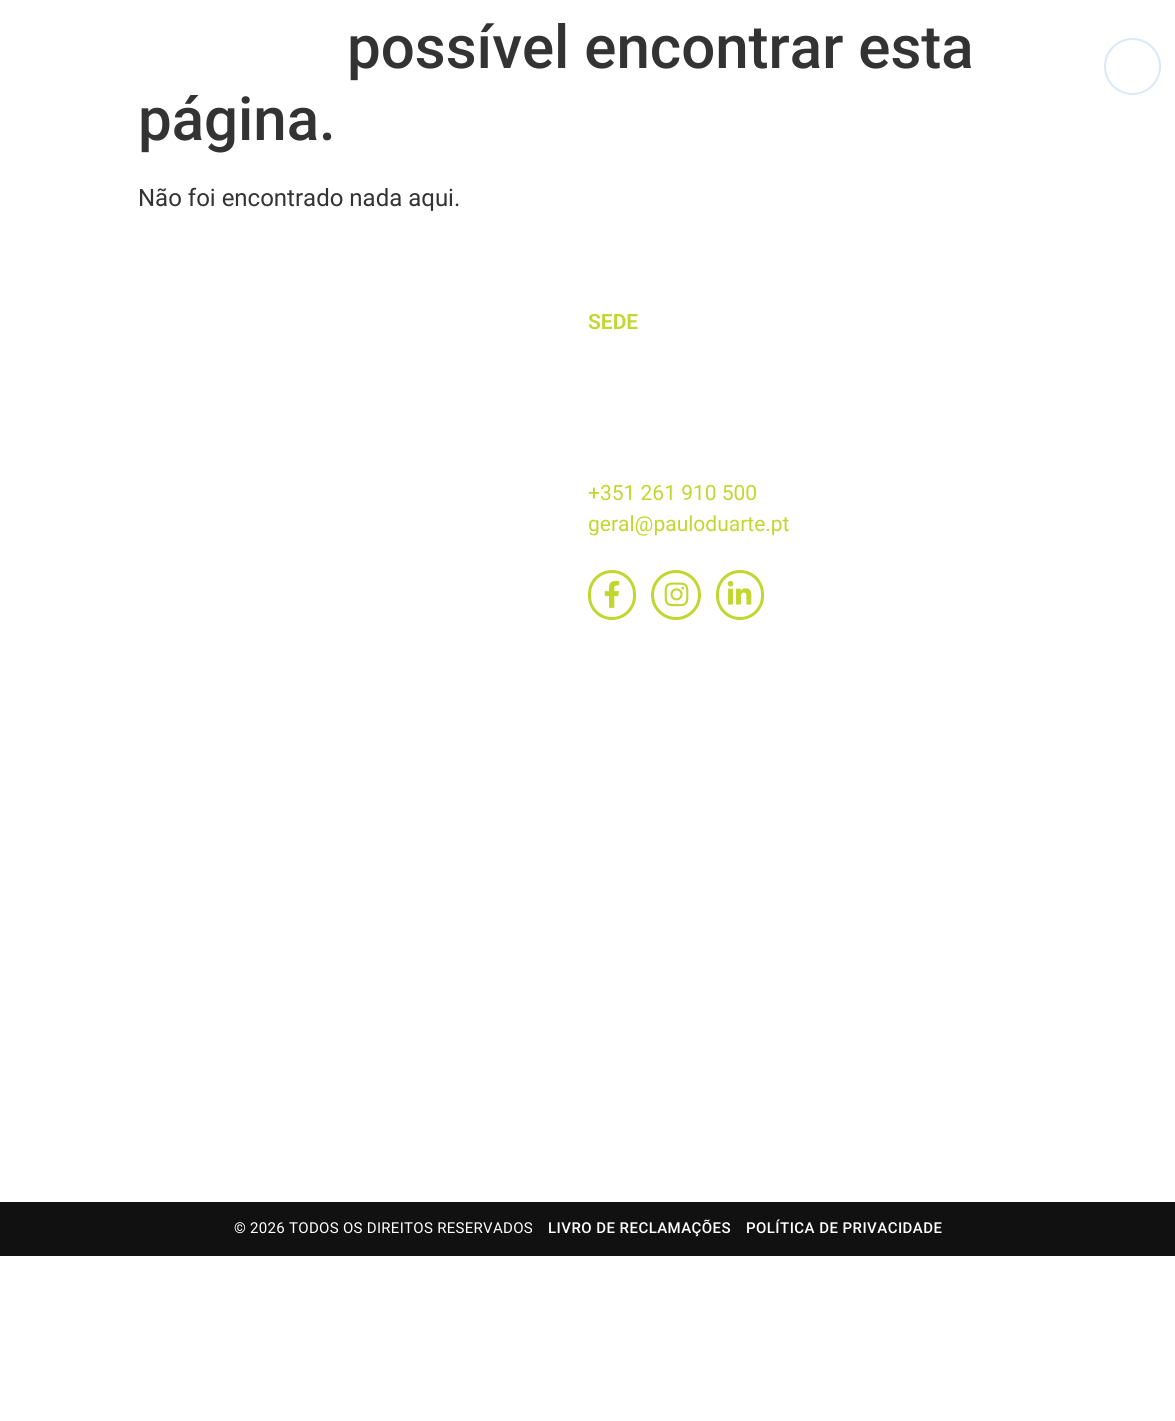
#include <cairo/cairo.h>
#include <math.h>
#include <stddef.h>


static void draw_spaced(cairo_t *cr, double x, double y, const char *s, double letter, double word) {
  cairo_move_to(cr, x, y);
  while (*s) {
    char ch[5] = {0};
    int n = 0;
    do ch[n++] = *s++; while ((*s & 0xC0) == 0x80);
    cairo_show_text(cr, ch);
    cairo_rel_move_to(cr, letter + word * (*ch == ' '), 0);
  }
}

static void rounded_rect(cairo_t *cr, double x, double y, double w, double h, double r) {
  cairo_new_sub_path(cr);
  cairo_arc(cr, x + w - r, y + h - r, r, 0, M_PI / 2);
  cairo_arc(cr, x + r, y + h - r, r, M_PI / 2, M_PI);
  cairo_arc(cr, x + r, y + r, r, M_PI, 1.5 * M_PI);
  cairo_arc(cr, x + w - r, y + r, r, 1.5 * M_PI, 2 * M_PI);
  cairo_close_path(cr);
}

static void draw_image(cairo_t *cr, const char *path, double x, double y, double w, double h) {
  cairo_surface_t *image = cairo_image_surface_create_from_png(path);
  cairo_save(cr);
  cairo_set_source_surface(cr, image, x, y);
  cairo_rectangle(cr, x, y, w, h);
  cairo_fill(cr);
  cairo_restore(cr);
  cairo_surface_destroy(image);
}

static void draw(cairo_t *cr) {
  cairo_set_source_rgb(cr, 1, 1, 1);
  cairo_paint(cr);
  draw_image(cr, "images/1.png", 142, 35, 187, 34);
  cairo_arc(cr, 1132.5, 66.5, 27.5, 0, 2 * M_PI);
  cairo_set_source_rgb(cr, 217 / 255.0, 233 / 255.0, 247 / 255.0);
  cairo_stroke(cr);
  rounded_rect(cr, 589.5, 571.5, 45, 47, 22.5);
  cairo_set_source_rgb(cr, 193 / 255.0, 215 / 255.0, 47 / 255.0);
  cairo_set_line_width(cr, 3);
  cairo_stroke(cr);
  draw_image(cr, "images/2.png", 604, 580, 16, 28);
  cairo_arc(cr, 676, 595, 23.5, 0, 2 * M_PI);
  cairo_stroke(cr);
  draw_image(cr, "images/3.png", 664, 582, 25, 25);
  rounded_rect(cr, 717.5, 571.5, 45, 47, 22.5);
  cairo_stroke(cr);
  draw_image(cr, "images/4.png", 727, 580, 25, 25);
  cairo_set_source_rgb(cr, 17 / 255.0, 17 / 255.0, 17 / 255.0);
  cairo_rectangle(cr, 0, 1202, 1175, 54);
  cairo_fill(cr);
  cairo_select_font_face(cr, "Roboto Medium", CAIRO_FONT_SLANT_NORMAL, CAIRO_FONT_WEIGHT_NORMAL);
  cairo_set_font_size(cr, 60);
  cairo_set_source_rgb(cr, 51 / 255.0, 51 / 255.0, 51 / 255.0);
  cairo_move_to(cr, 347, 68);
  cairo_show_text(cr, "possível encontrar esta");
  cairo_move_to(cr, 138, 140);
  cairo_show_text(cr, "página.");
  cairo_select_font_face(cr, "Roboto", CAIRO_FONT_SLANT_NORMAL, CAIRO_FONT_WEIGHT_NORMAL);
  cairo_set_font_size(cr, 24);
  cairo_move_to(cr, 138, 206);
  cairo_show_text(cr, "Não foi encontrado nada aqui.");
  cairo_select_font_face(cr, "Roboto SemiBold", CAIRO_FONT_SLANT_NORMAL, CAIRO_FONT_WEIGHT_NORMAL);
  cairo_set_font_size(cr, 21);
  cairo_set_source_rgb(cr, 193 / 255.0, 215 / 255.0, 47 / 255.0);
  cairo_move_to(cr, 588, 329);
  cairo_show_text(cr, "SEDE");
  cairo_select_font_face(cr, "Roboto", CAIRO_FONT_SLANT_NORMAL, CAIRO_FONT_WEIGHT_NORMAL);
  cairo_move_to(cr, 588, 500);
  cairo_show_text(cr, "+351 261 910 500");
  cairo_move_to(cr, 588, 531);
  cairo_show_text(cr, "geral@pauloduarte.pt");
  cairo_set_font_size(cr, 15);
  cairo_set_source_rgb(cr, 1, 1, 1);
  draw_spaced(cr, 234, 1233, "© 2026 TODOS OS DIREITOS RESERVADOS", 0.3, 0);
  cairo_select_font_face(cr, "Roboto Medium", CAIRO_FONT_SLANT_NORMAL, CAIRO_FONT_WEIGHT_NORMAL);
  draw_spaced(cr, 548, 1233, "LIVRO DE RECLAMAÇÕES", 0.45, 0);
  draw_spaced(cr, 746, 1233, "POLÍTICA DE PRIVACIDADE", 0.45, 0);
}

int main(void) {
  cairo_surface_t *surface = cairo_image_surface_create(CAIRO_FORMAT_RGB24, 1175, 1421);
  cairo_t *cr = cairo_create(surface);
  cairo_font_options_t *options = cairo_font_options_create();
  cairo_font_options_set_hint_metrics(options, CAIRO_HINT_METRICS_OFF);
  cairo_font_options_set_hint_style(options, CAIRO_HINT_STYLE_NONE);
  cairo_set_font_options(cr, options);
  cairo_set_miter_limit(cr, 4);
  draw(cr);
  cairo_surface_write_to_png(surface, "out.png");
  cairo_font_options_destroy(options);
  cairo_destroy(cr);
  cairo_surface_destroy(surface);
  return 0;
}
